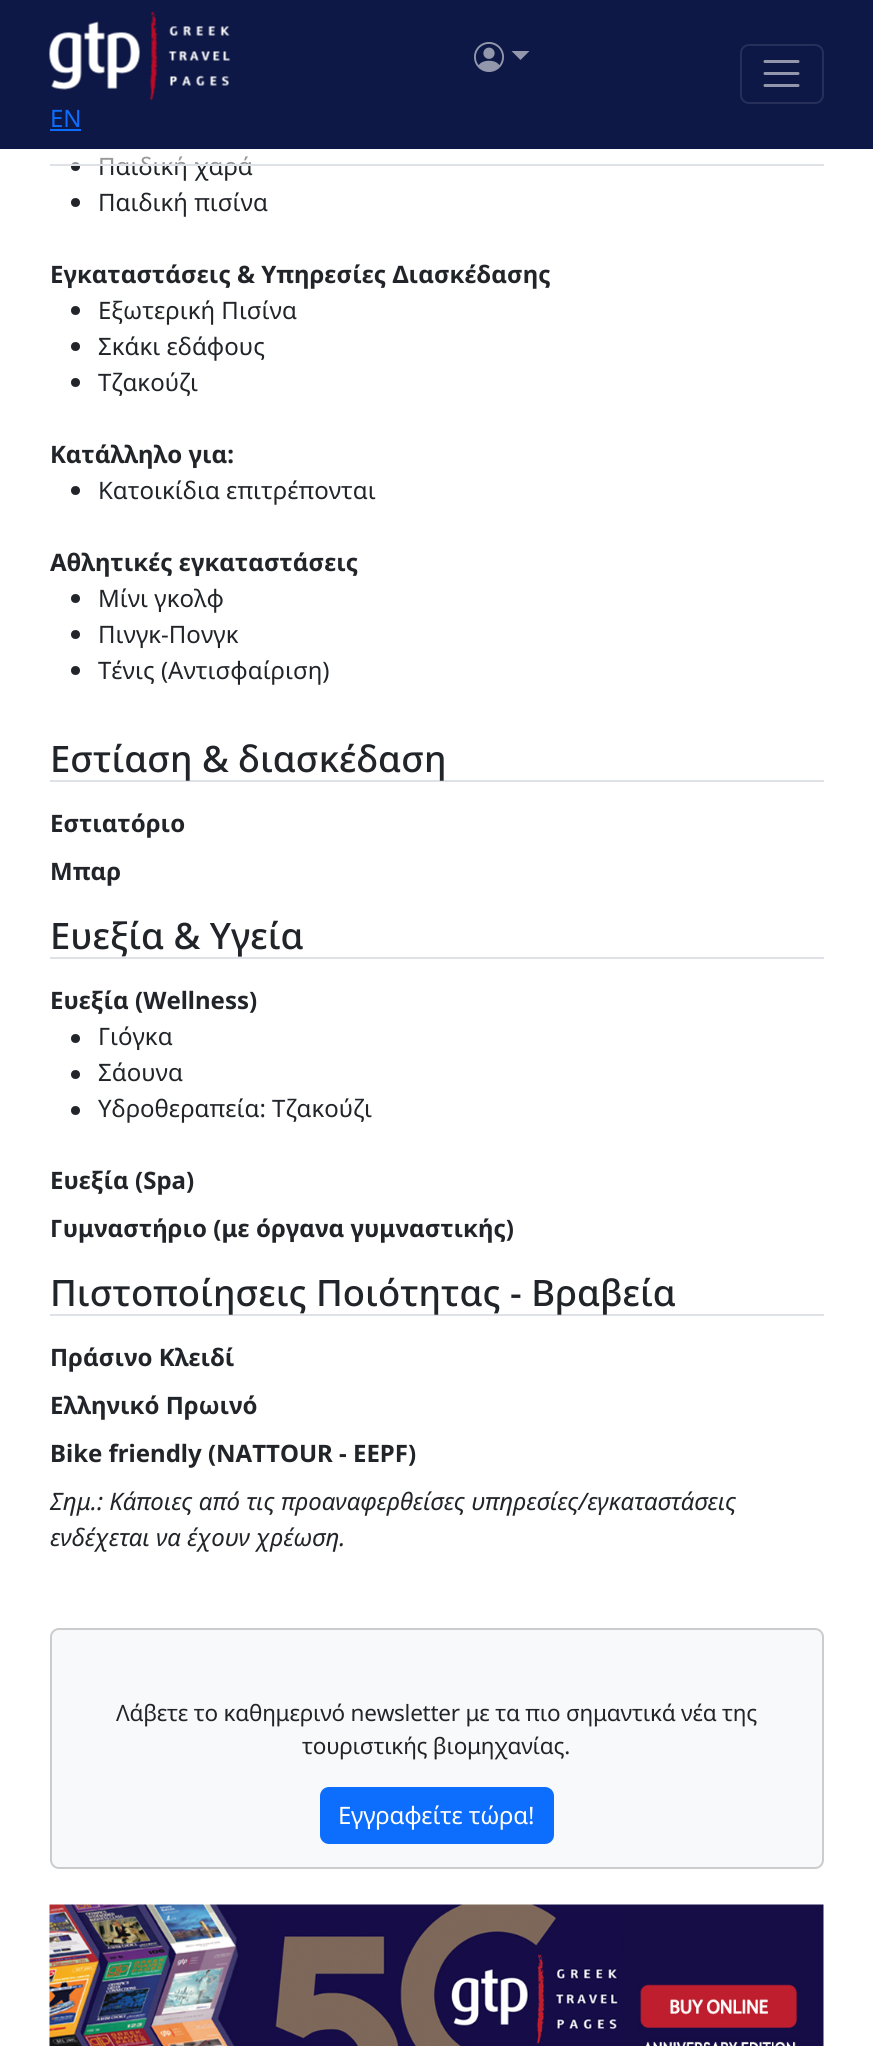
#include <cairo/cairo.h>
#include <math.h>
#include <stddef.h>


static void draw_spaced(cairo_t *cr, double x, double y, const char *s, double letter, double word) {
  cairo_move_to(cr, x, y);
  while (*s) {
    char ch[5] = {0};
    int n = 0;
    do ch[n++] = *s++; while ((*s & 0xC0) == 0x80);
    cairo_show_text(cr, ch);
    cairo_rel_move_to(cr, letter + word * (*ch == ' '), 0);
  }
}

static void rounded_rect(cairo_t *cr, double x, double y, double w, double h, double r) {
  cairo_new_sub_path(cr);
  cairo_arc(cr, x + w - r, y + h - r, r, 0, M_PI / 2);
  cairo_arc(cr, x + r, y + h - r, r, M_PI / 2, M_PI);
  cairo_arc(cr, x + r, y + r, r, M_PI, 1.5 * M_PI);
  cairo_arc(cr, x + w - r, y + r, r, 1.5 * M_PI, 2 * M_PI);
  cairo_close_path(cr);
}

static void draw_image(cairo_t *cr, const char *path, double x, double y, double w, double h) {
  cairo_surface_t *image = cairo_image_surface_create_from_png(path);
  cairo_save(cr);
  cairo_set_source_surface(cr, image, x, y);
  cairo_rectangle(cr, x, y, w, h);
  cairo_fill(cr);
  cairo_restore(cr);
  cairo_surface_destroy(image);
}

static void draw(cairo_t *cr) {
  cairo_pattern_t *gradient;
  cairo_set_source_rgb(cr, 1, 1, 1);
  cairo_paint(cr);
  cairo_set_source_rgb(cr, 13 / 255.0, 24 / 255.0, 70 / 255.0);
  cairo_rectangle(cr, 0, 0, 873, 149);
  cairo_fill(cr);
  draw_image(cr, "images/1.png", 474, 42, 30, 30);
  cairo_set_source_rgb(cr, 146 / 255.0, 151 / 255.0, 172 / 255.0);
  cairo_new_path(cr);
  cairo_move_to(cr, 511.5, 51);
  cairo_line_to(cr, 529.5, 51);
  cairo_line_to(cr, 520.5, 60);
  cairo_close_path(cr);
  cairo_fill(cr);
  rounded_rect(cr, 741, 45, 82, 58, 8);
  cairo_set_source_rgb(cr, 37 / 255.0, 47 / 255.0, 89 / 255.0);
  cairo_stroke(cr);
  cairo_new_path(cr);
  cairo_move_to(cr, 765, 61.5);
  cairo_line_to(cr, 798, 61.5);
  cairo_move_to(cr, 765, 73.5);
  cairo_line_to(cr, 798, 73.5);
  cairo_move_to(cr, 765, 85.5);
  cairo_line_to(cr, 798, 85.5);
  cairo_set_source_rgb(cr, 146 / 255.0, 151 / 255.0, 172 / 255.0);
  cairo_set_line_width(cr, 3);
  cairo_set_line_cap(cr, CAIRO_LINE_CAP_ROUND);
  cairo_stroke(cr);
  draw_image(cr, "images/2.png", 49, 11, 181, 90);
  cairo_set_source_rgb(cr, 13 / 255.0, 110 / 255.0, 253 / 255.0);
  cairo_rectangle(cr, 50, 129, 31, 2);
  cairo_fill(cr);
  cairo_set_source_rgb(cr, 33 / 255.0, 37 / 255.0, 41 / 255.0);
  cairo_arc(cr, 75.5, 166.5, 4.5, 0, 2 * M_PI);
  cairo_fill(cr);
  cairo_arc(cr, 75.5, 202.5, 4.5, 0, 2 * M_PI);
  cairo_fill(cr);
  cairo_arc(cr, 75.5, 310.5, 4.5, 0, 2 * M_PI);
  cairo_fill(cr);
  cairo_arc(cr, 75.5, 346.5, 4.5, 0, 2 * M_PI);
  cairo_fill(cr);
  cairo_arc(cr, 75.5, 382.5, 4.5, 0, 2 * M_PI);
  cairo_fill(cr);
  cairo_arc(cr, 75.5, 490.5, 4.5, 0, 2 * M_PI);
  cairo_fill(cr);
  cairo_arc(cr, 75.5, 598.5, 4.5, 0, 2 * M_PI);
  cairo_fill(cr);
  cairo_arc(cr, 75.5, 634.5, 4.5, 0, 2 * M_PI);
  cairo_fill(cr);
  cairo_arc(cr, 75.5, 670.5, 4.5, 0, 2 * M_PI);
  cairo_fill(cr);
  cairo_set_source_rgb(cr, 222 / 255.0, 226 / 255.0, 230 / 255.0);
  cairo_rectangle(cr, 50, 780, 774, 2);
  cairo_fill(cr);
  cairo_rectangle(cr, 50, 957, 774, 2);
  cairo_fill(cr);
  cairo_set_source_rgb(cr, 33 / 255.0, 37 / 255.0, 41 / 255.0);
  cairo_arc(cr, 75.5, 1038.5, 4.5, 0, 2 * M_PI);
  cairo_fill(cr);
  cairo_arc(cr, 75.5, 1074.5, 4.5, 0, 2 * M_PI);
  cairo_fill(cr);
  cairo_arc(cr, 75.5, 1110.5, 4.5, 0, 2 * M_PI);
  cairo_fill(cr);
  cairo_set_source_rgb(cr, 222 / 255.0, 226 / 255.0, 230 / 255.0);
  cairo_rectangle(cr, 50, 1314, 774, 2);
  cairo_fill(cr);
  cairo_set_source_rgb(cr, 248 / 255.0, 249 / 255.0, 250 / 255.0);
  rounded_rect(cr, 50, 1628, 774, 241, 9);
  cairo_fill(cr);
  rounded_rect(cr, 51, 1629, 772, 239, 8);
  cairo_set_source_rgba(cr, 0, 0, 0, 0.18);
  cairo_set_line_width(cr, 2);
  cairo_set_line_cap(cr, CAIRO_LINE_CAP_BUTT);
  cairo_stroke(cr);
  cairo_set_source_rgb(cr, 13 / 255.0, 110 / 255.0, 253 / 255.0);
  rounded_rect(cr, 321, 1788, 232, 55, 8);
  cairo_fill_preserve(cr);
  cairo_stroke(cr);
  draw_image(cr, "images/3.png", 49, 1904, 775, 142);
  cairo_select_font_face(cr, "Noto Sans", CAIRO_FONT_SLANT_NORMAL, CAIRO_FONT_WEIGHT_NORMAL);
  cairo_set_font_size(cr, 24);
  cairo_move_to(cr, 50, 127);
  cairo_show_text(cr, "EN");
  cairo_set_source_rgb(cr, 33 / 255.0, 37 / 255.0, 41 / 255.0);
  cairo_move_to(cr, 98, 175);
  cairo_show_text(cr, "Παιδική χαρά");
  cairo_move_to(cr, 98, 211);
  cairo_show_text(cr, "Παιδική πισίνα");
  cairo_select_font_face(cr, "Noto Sans", CAIRO_FONT_SLANT_NORMAL, CAIRO_FONT_WEIGHT_BOLD);
  cairo_move_to(cr, 50, 283);
  cairo_show_text(cr, "Εγκαταστάσεις & Υπηρεσίες Διασκέδασης");
  cairo_select_font_face(cr, "Noto Sans", CAIRO_FONT_SLANT_NORMAL, CAIRO_FONT_WEIGHT_NORMAL);
  cairo_move_to(cr, 98, 319);
  cairo_show_text(cr, "Εξωτερική Πισίνα");
  cairo_move_to(cr, 98, 355);
  cairo_show_text(cr, "Σκάκι εδάφους");
  cairo_move_to(cr, 98, 391);
  cairo_show_text(cr, "Τζακούζι");
  cairo_select_font_face(cr, "Noto Sans", CAIRO_FONT_SLANT_NORMAL, CAIRO_FONT_WEIGHT_BOLD);
  cairo_move_to(cr, 50, 463);
  cairo_show_text(cr, "Κατάλληλο για:");
  cairo_select_font_face(cr, "Noto Sans", CAIRO_FONT_SLANT_NORMAL, CAIRO_FONT_WEIGHT_NORMAL);
  cairo_move_to(cr, 98, 499);
  cairo_show_text(cr, "Κατοικίδια επιτρέπονται");
  cairo_select_font_face(cr, "Noto Sans", CAIRO_FONT_SLANT_NORMAL, CAIRO_FONT_WEIGHT_BOLD);
  cairo_move_to(cr, 50, 571);
  cairo_show_text(cr, "Αθλητικές εγκαταστάσεις");
  cairo_select_font_face(cr, "Noto Sans", CAIRO_FONT_SLANT_NORMAL, CAIRO_FONT_WEIGHT_NORMAL);
  cairo_move_to(cr, 98, 607);
  cairo_show_text(cr, "Μίνι γκολφ");
  cairo_move_to(cr, 98, 643);
  cairo_show_text(cr, "Πινγκ-Πονγκ");
  cairo_move_to(cr, 98, 679);
  cairo_show_text(cr, "Τένις (Αντισφαίριση)");
  cairo_select_font_face(cr, "Noto Sans Medium", CAIRO_FONT_SLANT_NORMAL, CAIRO_FONT_WEIGHT_NORMAL);
  cairo_set_font_size(cr, 36.4);
  cairo_move_to(cr, 50, 772);
  cairo_show_text(cr, "Εστίαση & διασκέδαση");
  cairo_select_font_face(cr, "Noto Sans", CAIRO_FONT_SLANT_NORMAL, CAIRO_FONT_WEIGHT_BOLD);
  cairo_set_font_size(cr, 24);
  cairo_move_to(cr, 50, 832);
  cairo_show_text(cr, "Εστιατόριο");
  cairo_move_to(cr, 50, 880);
  cairo_show_text(cr, "Μπαρ");
  cairo_select_font_face(cr, "Noto Sans Medium", CAIRO_FONT_SLANT_NORMAL, CAIRO_FONT_WEIGHT_NORMAL);
  cairo_set_font_size(cr, 36.4);
  cairo_move_to(cr, 50, 949);
  cairo_show_text(cr, "Ευεξία & Υγεία");
  cairo_select_font_face(cr, "Noto Sans", CAIRO_FONT_SLANT_NORMAL, CAIRO_FONT_WEIGHT_BOLD);
  cairo_set_font_size(cr, 24);
  cairo_move_to(cr, 50, 1009);
  cairo_show_text(cr, "Ευεξία (Wellness)");
  cairo_select_font_face(cr, "Noto Sans", CAIRO_FONT_SLANT_NORMAL, CAIRO_FONT_WEIGHT_NORMAL);
  cairo_move_to(cr, 98, 1045);
  cairo_show_text(cr, "Γιόγκα");
  cairo_move_to(cr, 98, 1081);
  cairo_show_text(cr, "Σάουνα");
  cairo_move_to(cr, 98, 1117);
  cairo_show_text(cr, "Υδροθεραπεία: Τζακούζι");
  cairo_select_font_face(cr, "Noto Sans", CAIRO_FONT_SLANT_NORMAL, CAIRO_FONT_WEIGHT_BOLD);
  cairo_move_to(cr, 50, 1189);
  cairo_show_text(cr, "Ευεξία (Spa)");
  cairo_move_to(cr, 50, 1237);
  cairo_show_text(cr, "Γυμναστήριο (με όργανα γυμναστικής)");
  cairo_select_font_face(cr, "Noto Sans Medium", CAIRO_FONT_SLANT_NORMAL, CAIRO_FONT_WEIGHT_NORMAL);
  cairo_set_font_size(cr, 36.4);
  cairo_move_to(cr, 50, 1306);
  cairo_show_text(cr, "Πιστοποίησεις Ποιότητας - Βραβεία");
  cairo_select_font_face(cr, "Noto Sans", CAIRO_FONT_SLANT_NORMAL, CAIRO_FONT_WEIGHT_BOLD);
  cairo_set_font_size(cr, 24);
  cairo_move_to(cr, 50, 1366);
  cairo_show_text(cr, "Πράσινο Κλειδί");
  cairo_move_to(cr, 50, 1414);
  cairo_show_text(cr, "Ελληνικό Πρωινό");
  cairo_move_to(cr, 50, 1462);
  cairo_show_text(cr, "Bike friendly (NATTOUR - EEPF)");
  cairo_select_font_face(cr, "Noto Sans", CAIRO_FONT_SLANT_ITALIC, CAIRO_FONT_WEIGHT_NORMAL);
  cairo_move_to(cr, 50, 1510);
  cairo_show_text(cr, "Σημ.: Κάποιες από τις προαναφερθείσες υπηρεσίες/εγκαταστάσεις");
  cairo_move_to(cr, 50, 1546);
  cairo_show_text(cr, "ενδέχεται να έχουν χρέωση.");
  gradient = cairo_pattern_create_linear(437, 165, 437, 72);
  cairo_pattern_add_color_stop_rgba(gradient, 0, 1, 1, 1, 0.5);
  cairo_pattern_add_color_stop_rgba(gradient, 1, 1, 1, 1, 1);
  cairo_set_source(cr, gradient);
  cairo_pattern_destroy(gradient);
  cairo_rectangle(cr, 71, 156, 179, 8);
  cairo_fill(cr);
  cairo_set_source_rgb(cr, 222 / 255.0, 226 / 255.0, 230 / 255.0);
  cairo_rectangle(cr, 50, 164, 774, 2);
  cairo_fill(cr);
  cairo_select_font_face(cr, "Noto Sans", CAIRO_FONT_SLANT_NORMAL, CAIRO_FONT_WEIGHT_NORMAL);
  cairo_set_font_size(cr, 22.5);
  cairo_set_source_rgb(cr, 33 / 255.0, 37 / 255.0, 41 / 255.0);
  draw_spaced(cr, 116, 1721, "Λάβετε το καθημερινό newsletter με τα πιο σημαντικά νέα της", -0.25, 0);
  draw_spaced(cr, 302, 1754, "τουριστικής βιομηχανίας.", -0.25, 0);
  cairo_set_font_size(cr, 24);
  cairo_set_source_rgb(cr, 1, 1, 1);
  draw_spaced(cr, 338, 1824, "Εγγραφείτε τώρα!", -0.25, 0);
}

int main(void) {
  cairo_surface_t *surface = cairo_image_surface_create(CAIRO_FORMAT_RGB24, 873, 2046);
  cairo_t *cr = cairo_create(surface);
  cairo_font_options_t *options = cairo_font_options_create();
  cairo_font_options_set_hint_metrics(options, CAIRO_HINT_METRICS_OFF);
  cairo_font_options_set_hint_style(options, CAIRO_HINT_STYLE_NONE);
  cairo_set_font_options(cr, options);
  cairo_set_miter_limit(cr, 4);
  draw(cr);
  cairo_surface_write_to_png(surface, "out.png");
  cairo_font_options_destroy(options);
  cairo_destroy(cr);
  cairo_surface_destroy(surface);
  return 0;
}
